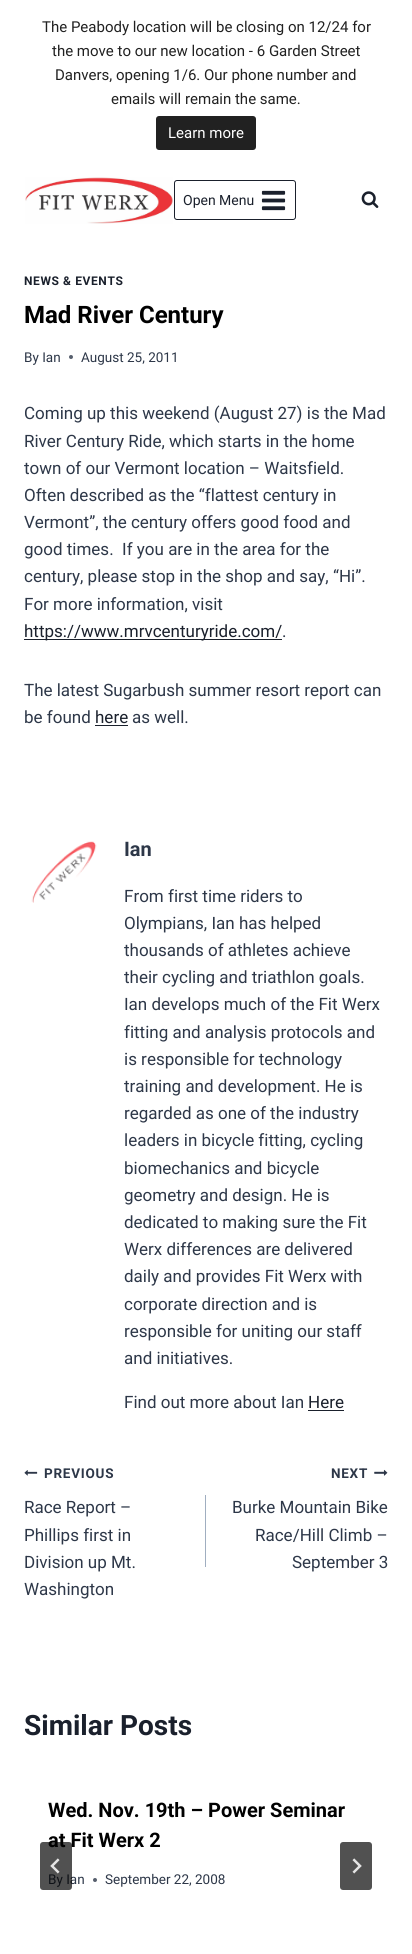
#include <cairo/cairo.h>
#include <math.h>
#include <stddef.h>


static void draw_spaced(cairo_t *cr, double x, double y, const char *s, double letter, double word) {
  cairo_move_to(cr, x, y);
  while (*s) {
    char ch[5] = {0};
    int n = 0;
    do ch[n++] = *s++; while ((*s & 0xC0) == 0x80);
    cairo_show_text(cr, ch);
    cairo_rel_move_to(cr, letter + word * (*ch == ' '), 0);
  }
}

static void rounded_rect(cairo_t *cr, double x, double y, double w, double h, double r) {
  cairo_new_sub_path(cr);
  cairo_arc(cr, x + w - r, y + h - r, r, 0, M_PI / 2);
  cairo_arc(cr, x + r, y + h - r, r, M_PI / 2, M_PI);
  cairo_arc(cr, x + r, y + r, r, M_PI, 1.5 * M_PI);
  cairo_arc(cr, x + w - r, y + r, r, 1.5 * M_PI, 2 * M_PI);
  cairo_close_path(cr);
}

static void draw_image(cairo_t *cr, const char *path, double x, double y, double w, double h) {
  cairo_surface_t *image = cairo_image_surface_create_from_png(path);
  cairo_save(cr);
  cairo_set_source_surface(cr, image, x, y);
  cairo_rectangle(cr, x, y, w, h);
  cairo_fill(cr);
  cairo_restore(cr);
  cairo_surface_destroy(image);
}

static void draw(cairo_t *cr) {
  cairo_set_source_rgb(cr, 1, 1, 1);
  cairo_paint(cr);
  cairo_set_source_rgb(cr, 33 / 255.0, 33 / 255.0, 33 / 255.0);
  rounded_rect(cr, 156, 116, 100, 34, 3);
  cairo_fill(cr);
  draw_image(cr, "images/1.png", 25, 177, 148, 47);
  rounded_rect(cr, 174.5, 180.5, 121, 39, 2.5);
  cairo_set_source_rgb(cr, 26 / 255.0, 32 / 255.0, 44 / 255.0);
  cairo_set_line_width(cr, 1);
  cairo_stroke(cr);
  draw_image(cr, "images/2.png", 261, 190, 25, 21);
  draw_image(cr, "images/3.png", 361, 191, 18, 17);
  cairo_set_source_rgb(cr, 87 / 255.0, 95 / 255.0, 109 / 255.0);
  cairo_arc(cr, 71, 357, 2, 0, 2 * M_PI);
  cairo_fill(cr);
  cairo_set_source_rgb(cr, 26 / 255.0, 32 / 255.0, 44 / 255.0);
  cairo_rectangle(cr, 24, 639, 258, 1);
  cairo_fill(cr);
  cairo_rectangle(cr, 95, 725, 33, 1);
  cairo_fill(cr);
  draw_image(cr, "images/4.png", 31, 841, 66, 62);
  cairo_rectangle(cr, 308, 1410, 36, 1);
  cairo_fill(cr);
  draw_image(cr, "images/5.png", 24, 1470, 14, 6);
  cairo_set_source_rgb(cr, 160 / 255.0, 174 / 255.0, 192 / 255.0);
  cairo_rectangle(cr, 205, 1495, 1, 72);
  cairo_fill(cr);
  draw_image(cr, "images/6.png", 374, 1469, 14, 7);
  cairo_set_source_rgb(cr, 87 / 255.0, 95 / 255.0, 109 / 255.0);
  cairo_arc(cr, 95, 1880, 2, 0, 2 * M_PI);
  cairo_fill(cr);
  cairo_set_source_rgb(cr, 81 / 255.0, 81 / 255.0, 81 / 255.0);
  rounded_rect(cr, 340, 1842, 32, 48, 3);
  cairo_fill(cr);
  draw_image(cr, "images/8.png", 352, 1858, 10, 16);
  cairo_select_font_face(cr, "Roboto", CAIRO_FONT_SLANT_NORMAL, CAIRO_FONT_WEIGHT_NORMAL);
  cairo_set_font_size(cr, 15);
  cairo_set_source_rgb(cr, 33 / 255.0, 33 / 255.0, 33 / 255.0);
  cairo_move_to(cr, 42, 32);
  cairo_show_text(cr, "The Peabody location will be closing on 12/24 for");
  cairo_move_to(cr, 52, 56);
  cairo_show_text(cr, "the move to our new location - 6 Garden Street");
  cairo_move_to(cr, 55, 80);
  cairo_show_text(cr, "Danvers, opening 1/6. Our phone number and");
  cairo_move_to(cr, 111, 104);
  cairo_show_text(cr, "emails will remain the same.");
  cairo_set_source_rgb(cr, 1, 1, 1);
  cairo_move_to(cr, 168, 138);
  cairo_show_text(cr, "Learn more");
  cairo_set_font_size(cr, 14);
  cairo_set_source_rgb(cr, 26 / 255.0, 32 / 255.0, 44 / 255.0);
  cairo_move_to(cr, 183, 205);
  cairo_show_text(cr, "Open Menu");
  cairo_select_font_face(cr, "Roboto", CAIRO_FONT_SLANT_NORMAL, CAIRO_FONT_WEIGHT_BOLD);
  cairo_set_font_size(cr, 12);
  draw_spaced(cr, 24, 285, "NEWS & EVENTS", 0.6, 0);
  cairo_set_font_size(cr, 24);
  cairo_set_source_rgb(cr, 0, 0, 0);
  cairo_move_to(cr, 24, 323);
  cairo_show_text(cr, "Mad River Century");
  cairo_select_font_face(cr, "Roboto", CAIRO_FONT_SLANT_NORMAL, CAIRO_FONT_WEIGHT_NORMAL);
  cairo_set_font_size(cr, 13.5);
  cairo_set_source_rgb(cr, 45 / 255.0, 55 / 255.0, 72 / 255.0);
  cairo_move_to(cr, 24, 362);
  cairo_show_text(cr, "By Ian");
  cairo_move_to(cr, 81, 362);
  cairo_show_text(cr, "August 25, 2011");
  cairo_set_font_size(cr, 17);
  cairo_move_to(cr, 24, 419);
  cairo_show_text(cr, "Coming up this weekend (August 27) is the Mad");
  cairo_move_to(cr, 24, 447);
  cairo_show_text(cr, "River Century Ride, which starts in the home");
  cairo_move_to(cr, 24, 474);
  cairo_show_text(cr, "town of our Vermont location – Waitsfield.");
  cairo_move_to(cr, 24, 501);
  cairo_show_text(cr, "Often described as the “flattest century in");
  cairo_move_to(cr, 24, 528);
  cairo_show_text(cr, "Vermont”, the century offers good food and");
  cairo_move_to(cr, 24, 555);
  cairo_show_text(cr, "good times.  If you are in the area for the");
  cairo_move_to(cr, 24, 582);
  cairo_show_text(cr, "century, please stop in the shop and say, “Hi”.");
  cairo_move_to(cr, 24, 610);
  cairo_show_text(cr, "For more information, visit");
  cairo_set_source_rgb(cr, 26 / 255.0, 32 / 255.0, 44 / 255.0);
  cairo_move_to(cr, 24, 637);
  cairo_show_text(cr, "https://www.mrvcenturyride.com/");
  cairo_set_source_rgb(cr, 45 / 255.0, 55 / 255.0, 72 / 255.0);
  cairo_move_to(cr, 282, 637);
  cairo_show_text(cr, ".");
  cairo_move_to(cr, 24, 696);
  cairo_show_text(cr, "The latest Sugarbush summer resort report can");
  cairo_move_to(cr, 24, 723);
  cairo_show_text(cr, "be found");
  cairo_set_source_rgb(cr, 26 / 255.0, 32 / 255.0, 44 / 255.0);
  cairo_move_to(cr, 95, 723);
  cairo_show_text(cr, "here");
  cairo_set_source_rgb(cr, 45 / 255.0, 55 / 255.0, 72 / 255.0);
  cairo_move_to(cr, 132, 723);
  cairo_show_text(cr, "as well.");
  cairo_select_font_face(cr, "Roboto", CAIRO_FONT_SLANT_NORMAL, CAIRO_FONT_WEIGHT_BOLD);
  cairo_set_font_size(cr, 20);
  cairo_move_to(cr, 124, 856);
  cairo_show_text(cr, "Ian");
  cairo_select_font_face(cr, "Roboto", CAIRO_FONT_SLANT_NORMAL, CAIRO_FONT_WEIGHT_NORMAL);
  cairo_set_font_size(cr, 17);
  cairo_move_to(cr, 124, 902);
  cairo_show_text(cr, "From first time riders to");
  cairo_move_to(cr, 124, 929);
  cairo_show_text(cr, "Olympians, Ian has helped");
  cairo_move_to(cr, 124, 956);
  cairo_show_text(cr, "thousands of athletes achieve");
  cairo_move_to(cr, 124, 983);
  cairo_show_text(cr, "their cycling and triathlon goals.");
  cairo_move_to(cr, 124, 1010);
  cairo_show_text(cr, "Ian develops much of the Fit Werx");
  cairo_move_to(cr, 124, 1038);
  cairo_show_text(cr, "fitting and analysis protocols and");
  cairo_move_to(cr, 124, 1065);
  cairo_show_text(cr, "is responsible for technology");
  cairo_move_to(cr, 124, 1092);
  cairo_show_text(cr, "training and development. He is");
  cairo_move_to(cr, 124, 1119);
  cairo_show_text(cr, "regarded as one of the industry");
  cairo_move_to(cr, 124, 1146);
  cairo_show_text(cr, "leaders in bicycle fitting, cycling");
  cairo_move_to(cr, 124, 1174);
  cairo_show_text(cr, "biomechanics and bicycle");
  cairo_move_to(cr, 124, 1201);
  cairo_show_text(cr, "geometry and design. He is");
  cairo_move_to(cr, 124, 1228);
  cairo_show_text(cr, "dedicated to making sure the Fit");
  cairo_move_to(cr, 124, 1255);
  cairo_show_text(cr, "Werx differences are delivered");
  cairo_move_to(cr, 124, 1282);
  cairo_show_text(cr, "daily and provides Fit Werx with");
  cairo_move_to(cr, 124, 1310);
  cairo_show_text(cr, "corporate direction and is");
  cairo_move_to(cr, 124, 1337);
  cairo_show_text(cr, "responsible for uniting our staff");
  cairo_move_to(cr, 124, 1364);
  cairo_show_text(cr, "and initiatives.");
  cairo_move_to(cr, 124, 1408);
  cairo_show_text(cr, "Find out more about Ian");
  cairo_set_source_rgb(cr, 26 / 255.0, 32 / 255.0, 44 / 255.0);
  cairo_move_to(cr, 308, 1408);
  cairo_show_text(cr, "Here");
  cairo_select_font_face(cr, "Roboto", CAIRO_FONT_SLANT_NORMAL, CAIRO_FONT_WEIGHT_BOLD);
  cairo_set_font_size(cr, 13.5);
  cairo_set_source_rgb(cr, 45 / 255.0, 55 / 255.0, 72 / 255.0);
  draw_spaced(cr, 44, 1478, "PREVIOUS", 0.75, 0);
  cairo_select_font_face(cr, "Roboto", CAIRO_FONT_SLANT_NORMAL, CAIRO_FONT_WEIGHT_NORMAL);
  cairo_set_font_size(cr, 17);
  cairo_move_to(cr, 24, 1513);
  cairo_show_text(cr, "Race Report –");
  cairo_move_to(cr, 24, 1541);
  cairo_show_text(cr, "Phillips first in");
  cairo_move_to(cr, 24, 1568);
  cairo_show_text(cr, "Division up Mt.");
  cairo_move_to(cr, 24, 1595);
  cairo_show_text(cr, "Washington");
  cairo_select_font_face(cr, "Roboto", CAIRO_FONT_SLANT_NORMAL, CAIRO_FONT_WEIGHT_BOLD);
  cairo_set_font_size(cr, 13.5);
  draw_spaced(cr, 331, 1478, "NEXT", 0.75, 0);
  cairo_select_font_face(cr, "Roboto", CAIRO_FONT_SLANT_NORMAL, CAIRO_FONT_WEIGHT_NORMAL);
  cairo_set_font_size(cr, 17);
  cairo_move_to(cr, 232, 1513);
  cairo_show_text(cr, "Burke Mountain Bike");
  cairo_move_to(cr, 255, 1541);
  cairo_show_text(cr, "Race/Hill Climb –");
  cairo_move_to(cr, 292, 1568);
  cairo_show_text(cr, "September 3");
  cairo_select_font_face(cr, "Roboto", CAIRO_FONT_SLANT_NORMAL, CAIRO_FONT_WEIGHT_BOLD);
  cairo_set_font_size(cr, 28);
  cairo_set_source_rgb(cr, 26 / 255.0, 32 / 255.0, 44 / 255.0);
  cairo_move_to(cr, 24, 1735);
  cairo_show_text(cr, "Similar Posts");
  cairo_set_font_size(cr, 20);
  cairo_set_source_rgb(cr, 0, 0, 0);
  cairo_move_to(cr, 48, 1817);
  cairo_show_text(cr, "Wed. Nov. 19th – Power Seminar");
  cairo_move_to(cr, 48, 1847);
  cairo_show_text(cr, "at Fit Werx 2");
  cairo_select_font_face(cr, "Roboto", CAIRO_FONT_SLANT_NORMAL, CAIRO_FONT_WEIGHT_NORMAL);
  cairo_set_font_size(cr, 13.5);
  cairo_set_source_rgb(cr, 45 / 255.0, 55 / 255.0, 72 / 255.0);
  cairo_move_to(cr, 48, 1884);
  cairo_show_text(cr, "By Ian");
  cairo_move_to(cr, 105, 1884);
  cairo_show_text(cr, "September 22, 2008");
  cairo_set_source_rgba(cr, 0, 0, 0, 0.68);
  rounded_rect(cr, 40, 1842, 32, 48, 3);
  cairo_fill(cr);
  draw_image(cr, "images/7.png", 50, 1858, 10, 16);
}

int main(void) {
  cairo_surface_t *surface = cairo_image_surface_create(CAIRO_FORMAT_RGB24, 412, 1954);
  cairo_t *cr = cairo_create(surface);
  cairo_font_options_t *options = cairo_font_options_create();
  cairo_font_options_set_hint_metrics(options, CAIRO_HINT_METRICS_OFF);
  cairo_font_options_set_hint_style(options, CAIRO_HINT_STYLE_NONE);
  cairo_set_font_options(cr, options);
  cairo_set_miter_limit(cr, 4);
  draw(cr);
  cairo_surface_write_to_png(surface, "out.png");
  cairo_font_options_destroy(options);
  cairo_destroy(cr);
  cairo_surface_destroy(surface);
  return 0;
}
